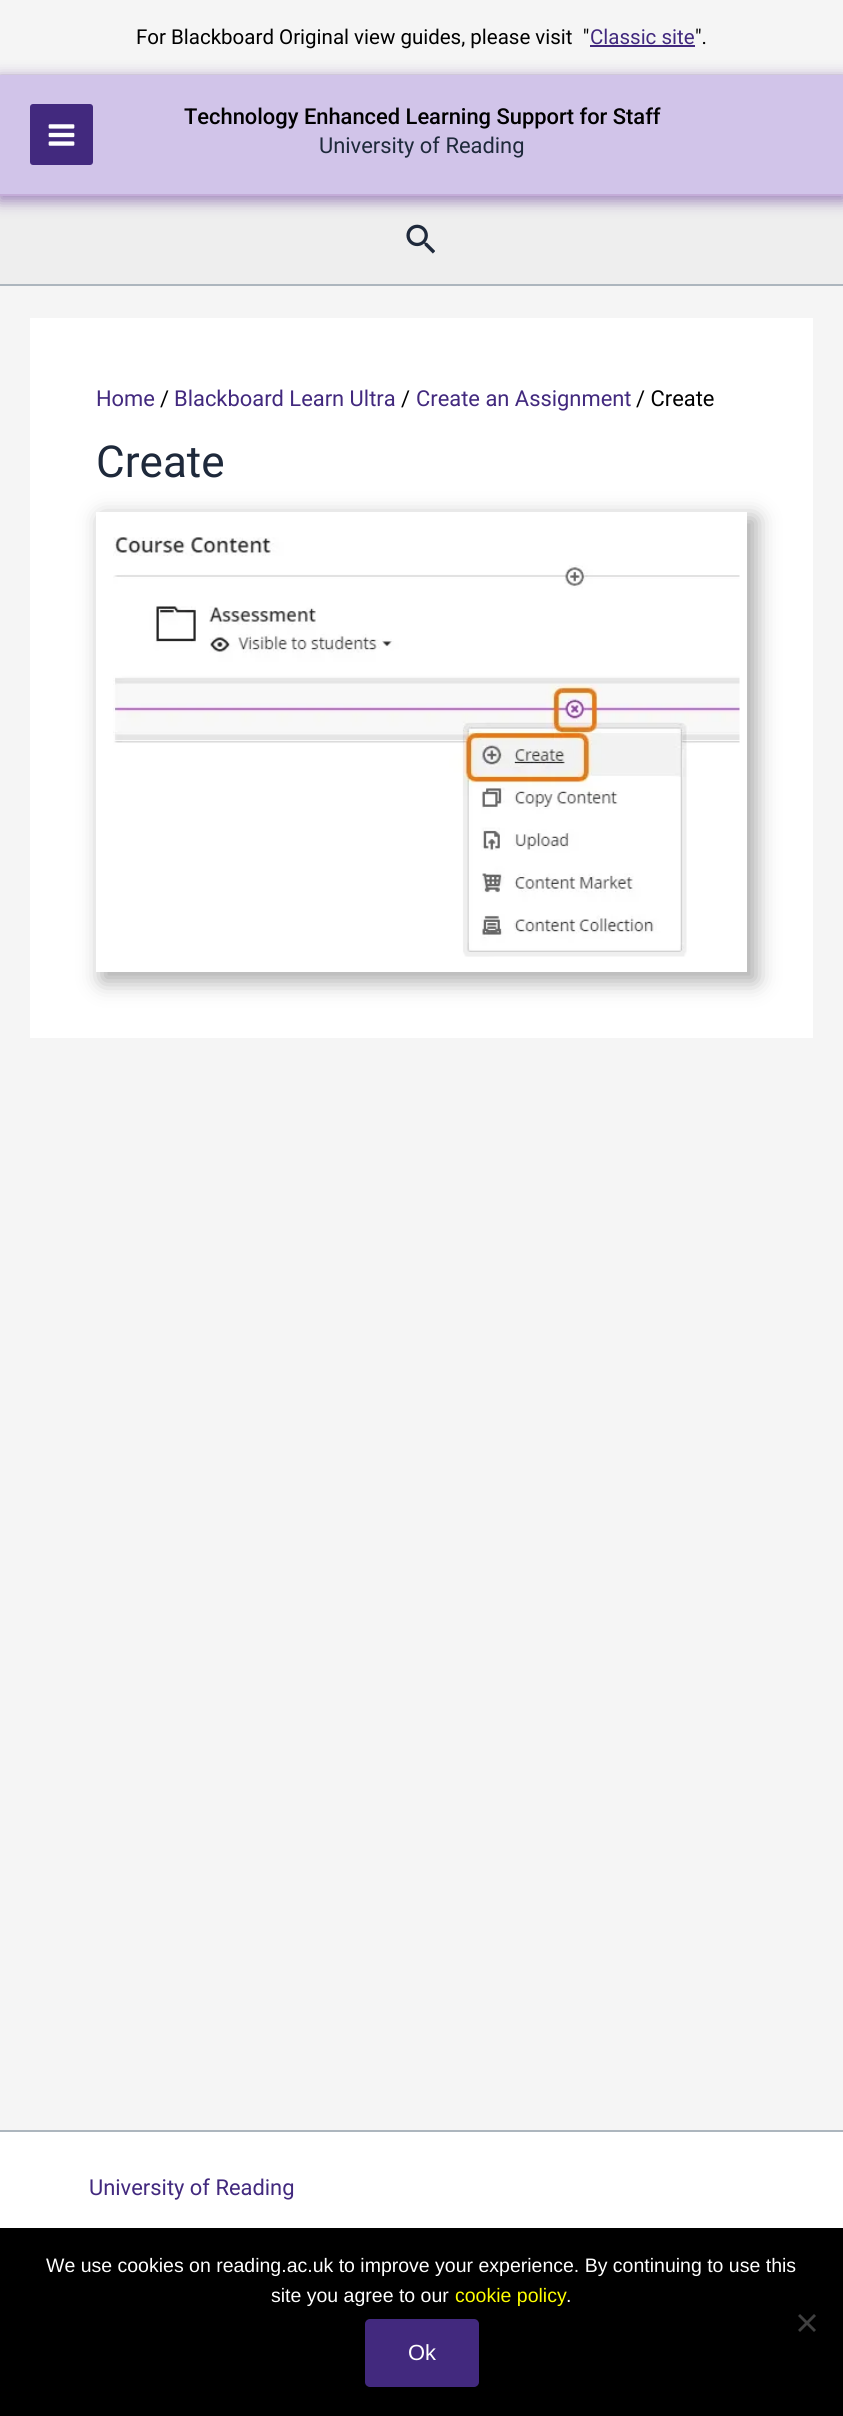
#include <cairo/cairo.h>
#include <math.h>
#include <stddef.h>


static void rounded_rect(cairo_t *cr, double x, double y, double w, double h, double r) {
  cairo_new_sub_path(cr);
  cairo_arc(cr, x + w - r, y + h - r, r, 0, M_PI / 2);
  cairo_arc(cr, x + r, y + h - r, r, M_PI / 2, M_PI);
  cairo_arc(cr, x + r, y + r, r, M_PI, 1.5 * M_PI);
  cairo_arc(cr, x + w - r, y + r, r, 1.5 * M_PI, 2 * M_PI);
  cairo_close_path(cr);
}

static void draw_shadow(cairo_t *cr, double x, double y, double w, double h, double r, double blur, double alpha) {
  cairo_push_group_with_content(cr, CAIRO_CONTENT_ALPHA);
  cairo_set_operator(cr, CAIRO_OPERATOR_SOURCE);
  for (int i = 15; i >= -15 && fmin(w, h) + blur * i / 3 > 0; i -= 2) {
    double e = blur * i / 6;
    cairo_set_source_rgba(cr, 0, 0, 0, alpha * erfc((i - 1) / 8.5) / 2);
    rounded_rect(cr, x - e, y - e, w + 2 * e, h + 2 * e, fmax(0, fmin(r + e + blur * .6, fmin(w, h) / 2 + e)));
    cairo_fill(cr);
  }
  cairo_pattern_t *soft = cairo_pop_group(cr);
  cairo_mask(cr, soft);
  cairo_pattern_destroy(soft);
}

static void draw_image(cairo_t *cr, const char *path, double x, double y, double w, double h) {
  cairo_surface_t *image = cairo_image_surface_create_from_png(path);
  cairo_save(cr);
  cairo_set_source_surface(cr, image, x, y);
  cairo_rectangle(cr, x, y, w, h);
  cairo_fill(cr);
  cairo_restore(cr);
  cairo_surface_destroy(image);
}

static void draw(cairo_t *cr) {
  cairo_set_source_rgb(cr, 245 / 255.0, 245 / 255.0, 245 / 255.0);
  cairo_paint(cr);
  cairo_set_source_rgb(cr, 234 / 255.0, 234 / 255.0, 234 / 255.0);
  cairo_rectangle(cr, 0, 74, 843, 1);
  cairo_fill(cr);
  cairo_set_source_rgb(cr, 66 / 255.0, 41 / 255.0, 126 / 255.0);
  cairo_rectangle(cr, 590, 45, 105, 2);
  cairo_fill(cr);
  cairo_set_source_rgb(cr, 238 / 255.0, 238 / 255.0, 238 / 255.0);
  cairo_rectangle(cr, 0, 196, 843, 88);
  cairo_fill(cr);
  cairo_set_source_rgb(cr, 157 / 255.0, 132 / 255.0, 185 / 255.0);
  draw_shadow(cr, -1, 78, 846, 123, 0, 7.5, 1);
  cairo_set_source_rgb(cr, 209 / 255.0, 196 / 255.0, 233 / 255.0);
  cairo_rectangle(cr, 0, 75, 843, 119);
  cairo_fill(cr);
  cairo_set_source_rgb(cr, 196 / 255.0, 172 / 255.0, 216 / 255.0);
  cairo_rectangle(cr, 0, 194, 843, 2);
  cairo_fill(cr);
  cairo_set_source_rgb(cr, 66 / 255.0, 41 / 255.0, 126 / 255.0);
  rounded_rect(cr, 30, 104, 63, 61, 3);
  cairo_fill(cr);
  draw_image(cr, "images/1.png", 48, 124, 27, 22);
  cairo_set_source_rgb(cr, 173 / 255.0, 182 / 255.0, 190 / 255.0);
  cairo_rectangle(cr, 0, 284, 843, 2);
  cairo_fill(cr);
  draw_image(cr, "images/2.png", 406, 224, 29, 30);
  cairo_set_source_rgb(cr, 1, 1, 1);
  cairo_rectangle(cr, 30, 318, 783, 720);
  cairo_fill(cr);
  cairo_save(cr);
  cairo_set_fill_rule(cr, CAIRO_FILL_RULE_EVEN_ODD);
  cairo_new_path(cr);
  cairo_move_to(cr, 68, 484);
  cairo_line_to(cr, 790, 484);
  cairo_line_to(cr, 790, 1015);
  cairo_line_to(cr, 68, 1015);
  cairo_close_path(cr);
  cairo_move_to(cr, 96, 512);
  cairo_line_to(cr, 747, 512);
  cairo_line_to(cr, 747, 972);
  cairo_line_to(cr, 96, 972);
  cairo_close_path(cr);
  cairo_clip(cr);
  cairo_set_source_rgb(cr, 169 / 255.0, 169 / 255.0, 169 / 255.0);
  draw_shadow(cr, 102, 518, 654, 463, 0, 11, 1);
  cairo_restore(cr);
  draw_image(cr, "images/3.png", 113, 537, 627, 420);
  cairo_rectangle(cr, 0, 2132, 843, 96);
  cairo_fill(cr);
  cairo_set_source_rgb(cr, 173 / 255.0, 182 / 255.0, 190 / 255.0);
  cairo_rectangle(cr, 0, 2130, 843, 2);
  cairo_fill(cr);
  cairo_set_source_rgb(cr, 0, 0, 0);
  cairo_rectangle(cr, 0, 2228, 843, 188);
  cairo_fill(cr);
  cairo_set_source_rgb(cr, 64 / 255.0, 64 / 255.0, 64 / 255.0);
  cairo_new_path(cr);
  cairo_move_to(cr, 814, 2314);
  cairo_line_to(cr, 816, 2316);
  cairo_line_to(cr, 800, 2332);
  cairo_line_to(cr, 798, 2330);
  cairo_close_path(cr);
  cairo_fill(cr);
  cairo_new_path(cr);
  cairo_move_to(cr, 798, 2316);
  cairo_line_to(cr, 800, 2314);
  cairo_line_to(cr, 816, 2330);
  cairo_line_to(cr, 814, 2332);
  cairo_close_path(cr);
  cairo_fill(cr);
  cairo_set_source_rgb(cr, 66 / 255.0, 41 / 255.0, 126 / 255.0);
  rounded_rect(cr, 366, 2320, 112, 66, 4);
  cairo_fill_preserve(cr);
  cairo_stroke(cr);
  cairo_select_font_face(cr, "Roboto", CAIRO_FONT_SLANT_NORMAL, CAIRO_FONT_WEIGHT_NORMAL);
  cairo_set_font_size(cr, 20.5);
  cairo_set_source_rgb(cr, 0, 0, 0);
  cairo_move_to(cr, 136, 44);
  cairo_show_text(cr, "For Blackboard Original view guides, please visit  \"");
  cairo_set_source_rgb(cr, 66 / 255.0, 41 / 255.0, 126 / 255.0);
  cairo_move_to(cr, 590, 44);
  cairo_show_text(cr, "Classic site");
  cairo_set_source_rgb(cr, 0, 0, 0);
  cairo_move_to(cr, 695, 44);
  cairo_show_text(cr, "\".");
  cairo_select_font_face(cr, "Roboto Medium", CAIRO_FONT_SLANT_NORMAL, CAIRO_FONT_WEIGHT_NORMAL);
  cairo_set_font_size(cr, 21.9);
  cairo_move_to(cr, 184, 124);
  cairo_show_text(cr, "Technology Enhanced Learning Support for Staff");
  cairo_select_font_face(cr, "Roboto", CAIRO_FONT_SLANT_NORMAL, CAIRO_FONT_WEIGHT_NORMAL);
  cairo_set_source_rgb(cr, 30 / 255.0, 41 / 255.0, 59 / 255.0);
  cairo_move_to(cr, 319, 153);
  cairo_show_text(cr, "University of Reading");
  cairo_set_source_rgb(cr, 66 / 255.0, 41 / 255.0, 126 / 255.0);
  cairo_move_to(cr, 96, 406);
  cairo_show_text(cr, "Home");
  cairo_set_source_rgb(cr, 0, 0, 0);
  cairo_move_to(cr, 160, 406);
  cairo_show_text(cr, "/");
  cairo_set_source_rgb(cr, 66 / 255.0, 41 / 255.0, 126 / 255.0);
  cairo_move_to(cr, 174, 406);
  cairo_show_text(cr, "Blackboard Learn Ultra");
  cairo_set_source_rgb(cr, 0, 0, 0);
  cairo_move_to(cr, 401, 406);
  cairo_show_text(cr, "/");
  cairo_set_source_rgb(cr, 66 / 255.0, 41 / 255.0, 126 / 255.0);
  cairo_move_to(cr, 416, 406);
  cairo_show_text(cr, "Create an Assignment");
  cairo_set_source_rgb(cr, 0, 0, 0);
  cairo_move_to(cr, 636, 406);
  cairo_show_text(cr, "/ Create");
  cairo_set_font_size(cr, 44);
  cairo_set_source_rgb(cr, 30 / 255.0, 41 / 255.0, 59 / 255.0);
  cairo_move_to(cr, 96, 477);
  cairo_show_text(cr, "Create");
  cairo_set_font_size(cr, 21.9);
  cairo_set_source_rgb(cr, 66 / 255.0, 41 / 255.0, 126 / 255.0);
  cairo_move_to(cr, 89, 2195);
  cairo_show_text(cr, "University of Reading");
  cairo_select_font_face(cr, "Liberation Sans", CAIRO_FONT_SLANT_NORMAL, CAIRO_FONT_WEIGHT_NORMAL);
  cairo_set_font_size(cr, 19.5);
  cairo_set_source_rgb(cr, 1, 1, 1);
  cairo_move_to(cr, 46, 2272);
  cairo_show_text(cr, "We use cookies on reading.ac.uk to improve your experience. By continuing to use this");
  cairo_move_to(cr, 271, 2302);
  cairo_show_text(cr, "site you agree to our");
  cairo_set_source_rgb(cr, 1, 1, 0);
  cairo_move_to(cr, 455, 2302);
  cairo_show_text(cr, "cookie policy");
  cairo_set_source_rgb(cr, 1, 1, 1);
  cairo_move_to(cr, 566, 2302);
  cairo_show_text(cr, ".");
  cairo_set_font_size(cr, 21.9);
  cairo_move_to(cr, 408, 2360);
  cairo_show_text(cr, "Ok");
}

int main(void) {
  cairo_surface_t *surface = cairo_image_surface_create(CAIRO_FORMAT_RGB24, 843, 2416);
  cairo_t *cr = cairo_create(surface);
  cairo_font_options_t *options = cairo_font_options_create();
  cairo_font_options_set_hint_metrics(options, CAIRO_HINT_METRICS_OFF);
  cairo_font_options_set_hint_style(options, CAIRO_HINT_STYLE_NONE);
  cairo_set_font_options(cr, options);
  cairo_set_miter_limit(cr, 4);
  draw(cr);
  cairo_surface_write_to_png(surface, "out.png");
  cairo_font_options_destroy(options);
  cairo_destroy(cr);
  cairo_surface_destroy(surface);
  return 0;
}
